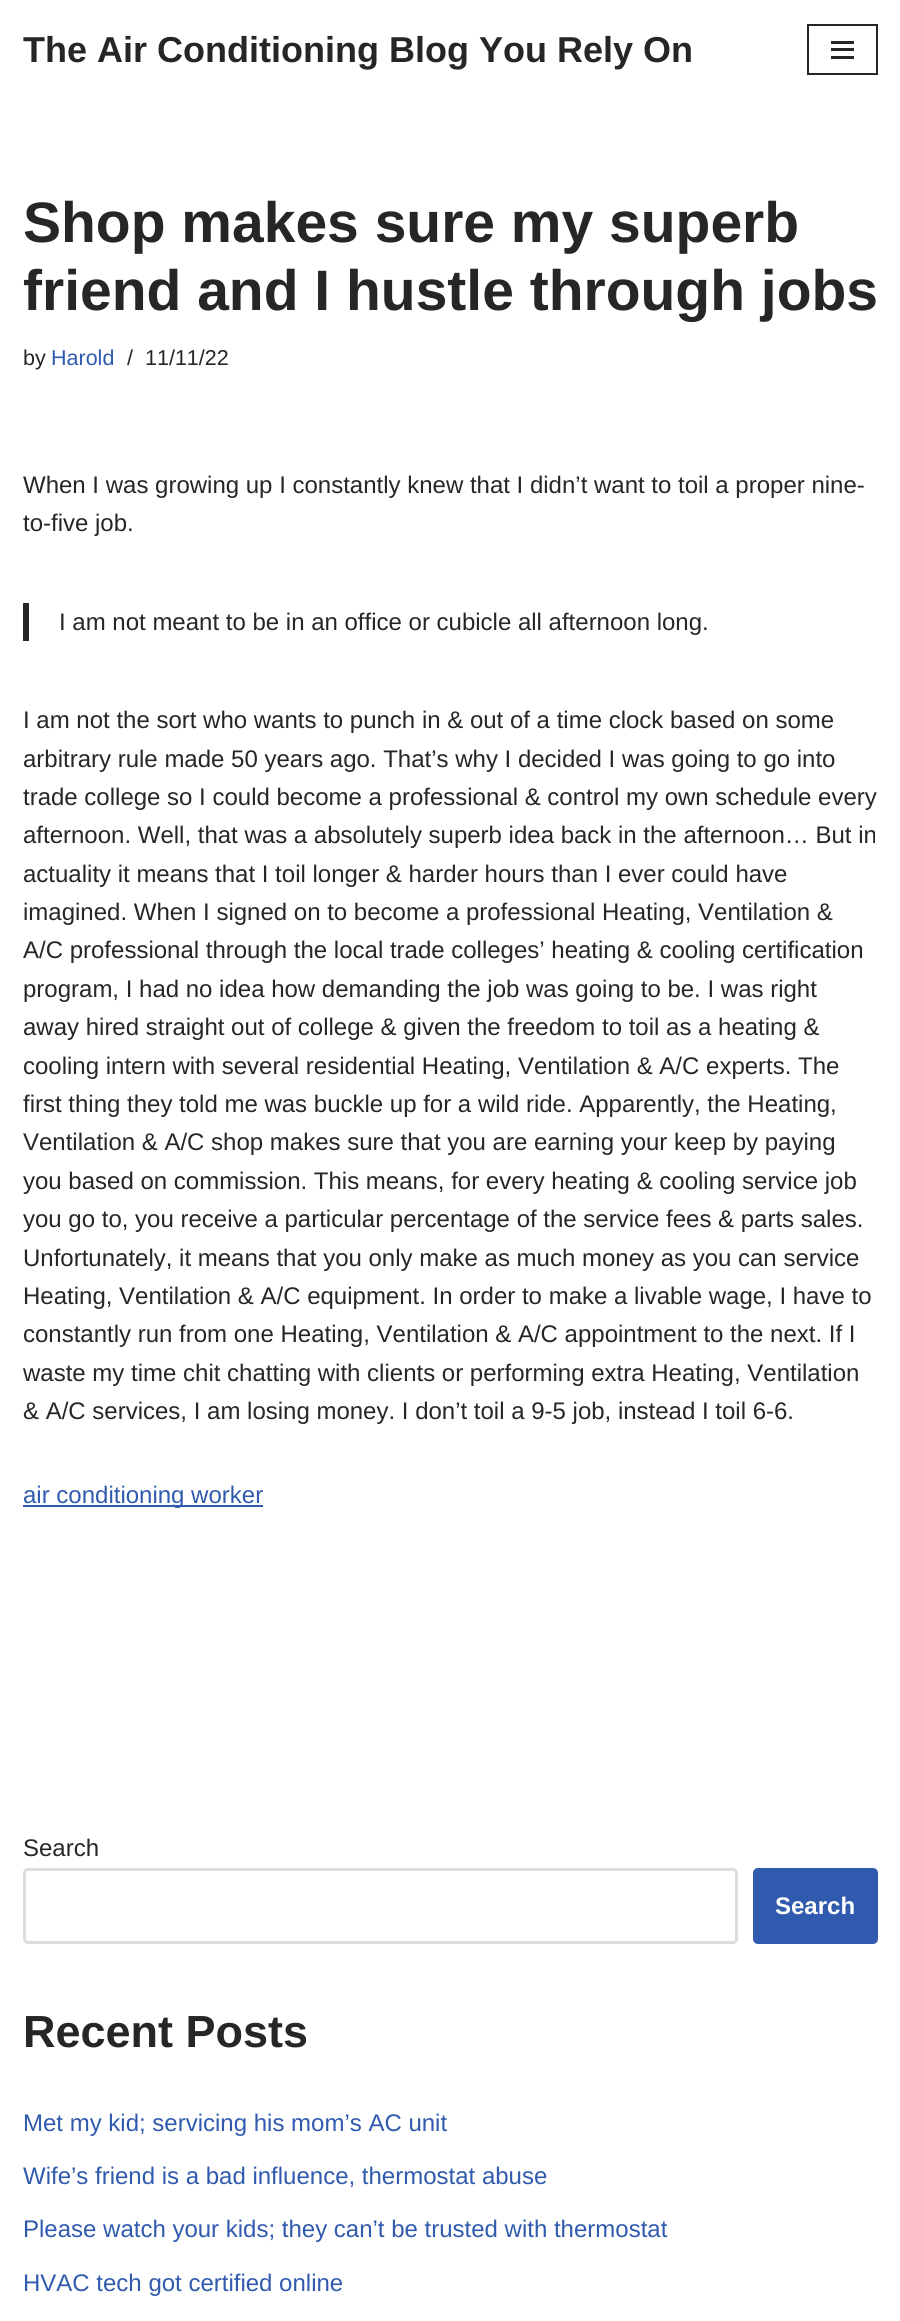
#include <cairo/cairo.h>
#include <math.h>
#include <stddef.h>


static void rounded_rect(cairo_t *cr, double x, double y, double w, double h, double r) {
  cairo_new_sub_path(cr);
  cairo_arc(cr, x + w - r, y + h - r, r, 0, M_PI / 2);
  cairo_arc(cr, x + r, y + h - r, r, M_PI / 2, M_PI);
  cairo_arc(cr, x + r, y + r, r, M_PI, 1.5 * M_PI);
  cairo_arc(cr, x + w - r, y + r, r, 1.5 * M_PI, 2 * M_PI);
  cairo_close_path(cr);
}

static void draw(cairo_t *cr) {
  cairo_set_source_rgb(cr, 1, 1, 1);
  cairo_paint(cr);
  cairo_rectangle(cr, 808, 25, 69, 49);
  cairo_set_source_rgb(cr, 39 / 255.0, 38 / 255.0, 38 / 255.0);
  cairo_stroke(cr);
  cairo_rectangle(cr, 831, 41, 23, 3);
  cairo_fill(cr);
  cairo_rectangle(cr, 831, 48, 23, 3);
  cairo_fill(cr);
  cairo_rectangle(cr, 831, 56, 23, 3);
  cairo_fill(cr);
  cairo_rectangle(cr, 23, 603, 6, 38);
  cairo_fill(cr);
  cairo_set_source_rgb(cr, 47 / 255.0, 90 / 255.0, 174 / 255.0);
  cairo_rectangle(cr, 23, 1505, 240, 2);
  cairo_fill(cr);
  rounded_rect(cr, 24.5, 1869.5, 712, 73, 3.5);
  cairo_set_source_rgb(cr, 221 / 255.0, 221 / 255.0, 221 / 255.0);
  cairo_set_line_width(cr, 3);
  cairo_stroke(cr);
  cairo_set_source_rgb(cr, 47 / 255.0, 90 / 255.0, 174 / 255.0);
  rounded_rect(cr, 753, 1868, 125, 76, 5);
  cairo_fill(cr);
  cairo_select_font_face(cr, "Liberation Sans", CAIRO_FONT_SLANT_NORMAL, CAIRO_FONT_WEIGHT_BOLD);
  cairo_set_font_size(cr, 36);
  cairo_set_source_rgb(cr, 39 / 255.0, 38 / 255.0, 38 / 255.0);
  cairo_move_to(cr, 23, 62);
  cairo_show_text(cr, "The Air Conditioning Blog You Rely On");
  cairo_set_font_size(cr, 57);
  cairo_move_to(cr, 23, 242);
  cairo_show_text(cr, "Shop makes sure my superb");
  cairo_move_to(cr, 23, 310);
  cairo_show_text(cr, "friend and I hustle through jobs");
  cairo_select_font_face(cr, "Liberation Sans", CAIRO_FONT_SLANT_NORMAL, CAIRO_FONT_WEIGHT_NORMAL);
  cairo_set_font_size(cr, 21.5);
  cairo_move_to(cr, 23, 365);
  cairo_show_text(cr, "by");
  cairo_set_source_rgb(cr, 47 / 255.0, 90 / 255.0, 174 / 255.0);
  cairo_move_to(cr, 51, 365);
  cairo_show_text(cr, "Harold");
  cairo_set_source_rgb(cr, 39 / 255.0, 38 / 255.0, 38 / 255.0);
  cairo_move_to(cr, 127, 365);
  cairo_show_text(cr, "/");
  cairo_move_to(cr, 145, 365);
  cairo_show_text(cr, "11/11/22");
  cairo_set_font_size(cr, 24);
  cairo_move_to(cr, 23, 493);
  cairo_show_text(cr, "When I was growing up I constantly knew that I didn’t want to toil a proper nine-");
  cairo_move_to(cr, 23, 531);
  cairo_show_text(cr, "to-five job.");
  cairo_move_to(cr, 59, 630);
  cairo_show_text(cr, "I am not meant to be in an office or cubicle all afternoon long.");
  cairo_move_to(cr, 23, 728);
  cairo_show_text(cr, "I am not the sort who wants to punch in & out of a time clock based on some");
  cairo_move_to(cr, 23, 767);
  cairo_show_text(cr, "arbitrary rule made 50 years ago. That’s why I decided I was going to go into");
  cairo_move_to(cr, 23, 805);
  cairo_show_text(cr, "trade college so I could become a professional & control my own schedule every");
  cairo_move_to(cr, 23, 843);
  cairo_show_text(cr, "afternoon. Well, that was a absolutely superb idea back in the afternoon… But in");
  cairo_move_to(cr, 23, 882);
  cairo_show_text(cr, "actuality it means that I toil longer & harder hours than I ever could have");
  cairo_move_to(cr, 23, 920);
  cairo_show_text(cr, "imagined. When I signed on to become a professional Heating, Ventilation &");
  cairo_move_to(cr, 23, 958);
  cairo_show_text(cr, "A/C professional through the local trade colleges’ heating & cooling certification");
  cairo_move_to(cr, 23, 997);
  cairo_show_text(cr, "program, I had no idea how demanding the job was going to be. I was right");
  cairo_move_to(cr, 23, 1035);
  cairo_show_text(cr, "away hired straight out of college & given the freedom to toil as a heating &");
  cairo_move_to(cr, 23, 1074);
  cairo_show_text(cr, "cooling intern with several residential Heating, Ventilation & A/C experts. The");
  cairo_move_to(cr, 23, 1112);
  cairo_show_text(cr, "first thing they told me was buckle up for a wild ride. Apparently, the Heating,");
  cairo_move_to(cr, 23, 1150);
  cairo_show_text(cr, "Ventilation & A/C shop makes sure that you are earning your keep by paying");
  cairo_move_to(cr, 23, 1189);
  cairo_show_text(cr, "you based on commission. This means, for every heating & cooling service job");
  cairo_move_to(cr, 23, 1227);
  cairo_show_text(cr, "you go to, you receive a particular percentage of the service fees & parts sales.");
  cairo_move_to(cr, 23, 1266);
  cairo_show_text(cr, "Unfortunately, it means that you only make as much money as you can service");
  cairo_move_to(cr, 23, 1304);
  cairo_show_text(cr, "Heating, Ventilation & A/C equipment. In order to make a livable wage, I have to");
  cairo_move_to(cr, 23, 1342);
  cairo_show_text(cr, "constantly run from one Heating, Ventilation & A/C appointment to the next. If I");
  cairo_move_to(cr, 23, 1381);
  cairo_show_text(cr, "waste my time chit chatting with clients or performing extra Heating, Ventilation");
  cairo_move_to(cr, 23, 1419);
  cairo_show_text(cr, "& A/C services, I am losing money. I don’t toil a 9-5 job, instead I toil 6-6.");
  cairo_set_source_rgb(cr, 47 / 255.0, 90 / 255.0, 174 / 255.0);
  cairo_move_to(cr, 23, 1503);
  cairo_show_text(cr, "air conditioning worker");
  cairo_set_source_rgb(cr, 39 / 255.0, 38 / 255.0, 38 / 255.0);
  cairo_move_to(cr, 23, 1856);
  cairo_show_text(cr, "Search");
  cairo_select_font_face(cr, "Liberation Sans", CAIRO_FONT_SLANT_NORMAL, CAIRO_FONT_WEIGHT_BOLD);
  cairo_set_source_rgb(cr, 1, 1, 1);
  cairo_move_to(cr, 775, 1914);
  cairo_show_text(cr, "Search");
  cairo_set_font_size(cr, 45);
  cairo_set_source_rgb(cr, 39 / 255.0, 38 / 255.0, 38 / 255.0);
  cairo_move_to(cr, 23, 2047);
  cairo_show_text(cr, "Recent Posts");
  cairo_select_font_face(cr, "Liberation Sans", CAIRO_FONT_SLANT_NORMAL, CAIRO_FONT_WEIGHT_NORMAL);
  cairo_set_font_size(cr, 24);
  cairo_set_source_rgb(cr, 47 / 255.0, 90 / 255.0, 174 / 255.0);
  cairo_move_to(cr, 23, 2131);
  cairo_show_text(cr, "Met my kid; servicing his mom’s AC unit");
  cairo_move_to(cr, 23, 2184);
  cairo_show_text(cr, "Wife’s friend is a bad influence, thermostat abuse");
  cairo_move_to(cr, 23, 2237);
  cairo_show_text(cr, "Please watch your kids; they can’t be trusted with thermostat");
  cairo_move_to(cr, 23, 2291);
  cairo_show_text(cr, "HVAC tech got certified online");
}

int main(void) {
  cairo_surface_t *surface = cairo_image_surface_create(CAIRO_FORMAT_RGB24, 900, 2321);
  cairo_t *cr = cairo_create(surface);
  cairo_font_options_t *options = cairo_font_options_create();
  cairo_font_options_set_hint_metrics(options, CAIRO_HINT_METRICS_OFF);
  cairo_font_options_set_hint_style(options, CAIRO_HINT_STYLE_NONE);
  cairo_set_font_options(cr, options);
  cairo_set_miter_limit(cr, 4);
  draw(cr);
  cairo_surface_write_to_png(surface, "out.png");
  cairo_font_options_destroy(options);
  cairo_destroy(cr);
  cairo_surface_destroy(surface);
  return 0;
}
